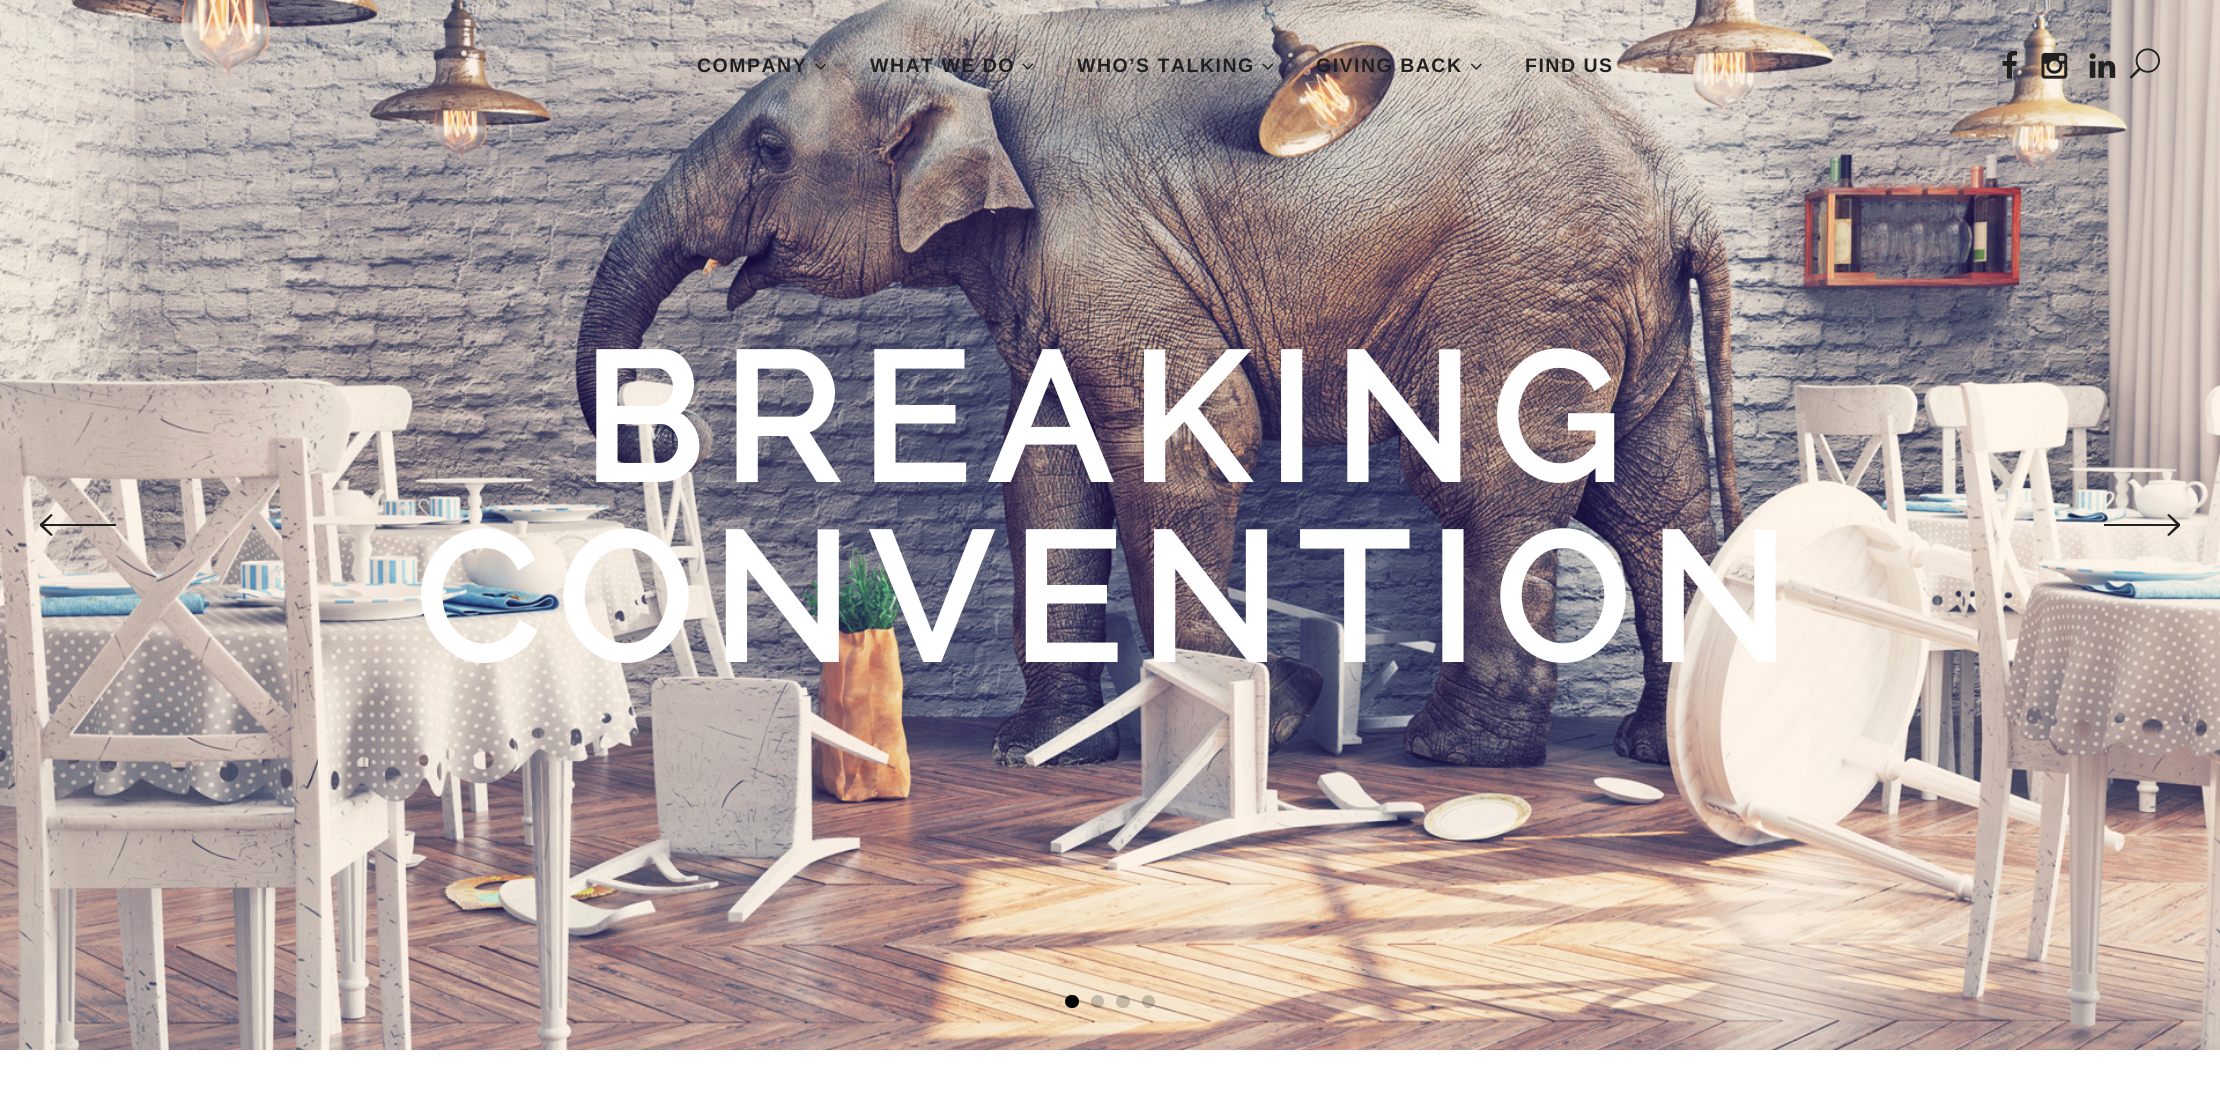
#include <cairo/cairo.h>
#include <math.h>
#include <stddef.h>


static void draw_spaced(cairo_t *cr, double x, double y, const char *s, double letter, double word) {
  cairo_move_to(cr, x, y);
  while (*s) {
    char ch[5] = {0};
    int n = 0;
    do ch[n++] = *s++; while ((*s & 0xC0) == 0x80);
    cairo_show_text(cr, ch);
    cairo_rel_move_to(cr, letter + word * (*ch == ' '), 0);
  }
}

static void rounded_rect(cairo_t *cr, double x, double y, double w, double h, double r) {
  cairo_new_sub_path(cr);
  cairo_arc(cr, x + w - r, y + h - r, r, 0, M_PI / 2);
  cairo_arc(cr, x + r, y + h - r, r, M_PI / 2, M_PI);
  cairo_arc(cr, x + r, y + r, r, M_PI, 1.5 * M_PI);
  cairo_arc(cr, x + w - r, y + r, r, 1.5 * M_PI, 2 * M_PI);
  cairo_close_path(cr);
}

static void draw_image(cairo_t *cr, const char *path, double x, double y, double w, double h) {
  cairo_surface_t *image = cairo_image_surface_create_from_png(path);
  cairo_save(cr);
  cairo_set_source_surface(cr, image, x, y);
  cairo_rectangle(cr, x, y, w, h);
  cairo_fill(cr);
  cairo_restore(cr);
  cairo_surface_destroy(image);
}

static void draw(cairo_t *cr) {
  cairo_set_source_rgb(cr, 1, 1, 1);
  cairo_paint(cr);
  draw_image(cr, "images/9.png", 0, 0, 2220, 1050);
  draw_image(cr, "images/1.png", 815, 63, 12, 7);
  draw_image(cr, "images/2.png", 1022, 63, 12, 7);
  draw_image(cr, "images/3.png", 1262, 63, 12, 7);
  draw_image(cr, "images/4.png", 1470, 63, 12, 7);
  draw_image(cr, "images/5.png", 2002, 50, 16, 29);
  draw_image(cr, "images/6.png", 2041, 52, 27, 27);
  draw_image(cr, "images/7.png", 2089, 53, 27, 25);
  draw_image(cr, "images/8.png", 2129, 48, 31, 31);
  cairo_set_source_rgb(cr, 32 / 255.0, 32 / 255.0, 32 / 255.0);
  cairo_new_path(cr);
  cairo_move_to(cr, 53, 515);
  cairo_line_to(cr, 44, 524);
  cairo_line_to(cr, 116, 524);
  cairo_line_to(cr, 116, 526);
  cairo_line_to(cr, 44, 526);
  cairo_line_to(cr, 53, 535);
  cairo_line_to(cr, 51, 536);
  cairo_line_to(cr, 40, 526);
  cairo_line_to(cr, 40, 524);
  cairo_line_to(cr, 51, 514);
  cairo_close_path(cr);
  cairo_fill(cr);
  cairo_new_path(cr);
  cairo_move_to(cr, 2167, 535);
  cairo_line_to(cr, 2176, 526);
  cairo_line_to(cr, 2104, 526);
  cairo_line_to(cr, 2104, 524);
  cairo_line_to(cr, 2176, 524);
  cairo_line_to(cr, 2167, 515);
  cairo_line_to(cr, 2169, 514);
  cairo_line_to(cr, 2180, 524);
  cairo_line_to(cr, 2180, 526);
  cairo_line_to(cr, 2169, 536);
  cairo_close_path(cr);
  cairo_fill(cr);
  cairo_set_source_rgb(cr, 0, 0, 0);
  rounded_rect(cr, 1065, 995, 14, 13, 6.5);
  cairo_fill(cr);
  cairo_set_source_rgba(cr, 0, 0, 0, 0.2);
  cairo_arc(cr, 1097.5, 1001.5, 6.5, 0, 2 * M_PI);
  cairo_fill(cr);
  rounded_rect(cr, 1116, 995, 14, 13, 6.5);
  cairo_fill(cr);
  cairo_arc(cr, 1148.5, 1001.5, 6.5, 0, 2 * M_PI);
  cairo_fill(cr);
  cairo_select_font_face(cr, "Liberation Sans", CAIRO_FONT_SLANT_NORMAL, CAIRO_FONT_WEIGHT_BOLD);
  cairo_set_font_size(cr, 19.5);
  cairo_set_source_rgb(cr, 32 / 255.0, 32 / 255.0, 32 / 255.0);
  draw_spaced(cr, 697, 72, "COMPANY", 1.5, 0);
  draw_spaced(cr, 870, 72, "WHAT WE DO", 1.5, 0);
  draw_spaced(cr, 1077, 72, "WHO’S TALKING", 1.5, 0);
  draw_spaced(cr, 1316, 72, "GIVING BACK", 1.5, 0);
  draw_spaced(cr, 1525, 72, "FIND US", 1.5, 0);
  cairo_select_font_face(cr, "Raleway", CAIRO_FONT_SLANT_NORMAL, CAIRO_FONT_WEIGHT_BOLD);
  cairo_set_font_size(cr, 180);
  cairo_set_source_rgb(cr, 1, 1, 1);
  draw_spaced(cr, 581, 482, "BREAKING", 19.5, 0);
  draw_spaced(cr, 414, 662, "CONVENTION", 19.5, 0);
}

int main(void) {
  cairo_surface_t *surface = cairo_image_surface_create(CAIRO_FORMAT_RGB24, 2220, 1116);
  cairo_t *cr = cairo_create(surface);
  cairo_font_options_t *options = cairo_font_options_create();
  cairo_font_options_set_hint_metrics(options, CAIRO_HINT_METRICS_OFF);
  cairo_font_options_set_hint_style(options, CAIRO_HINT_STYLE_NONE);
  cairo_set_font_options(cr, options);
  cairo_set_miter_limit(cr, 4);
  draw(cr);
  cairo_surface_write_to_png(surface, "out.png");
  cairo_font_options_destroy(options);
  cairo_destroy(cr);
  cairo_surface_destroy(surface);
  return 0;
}
